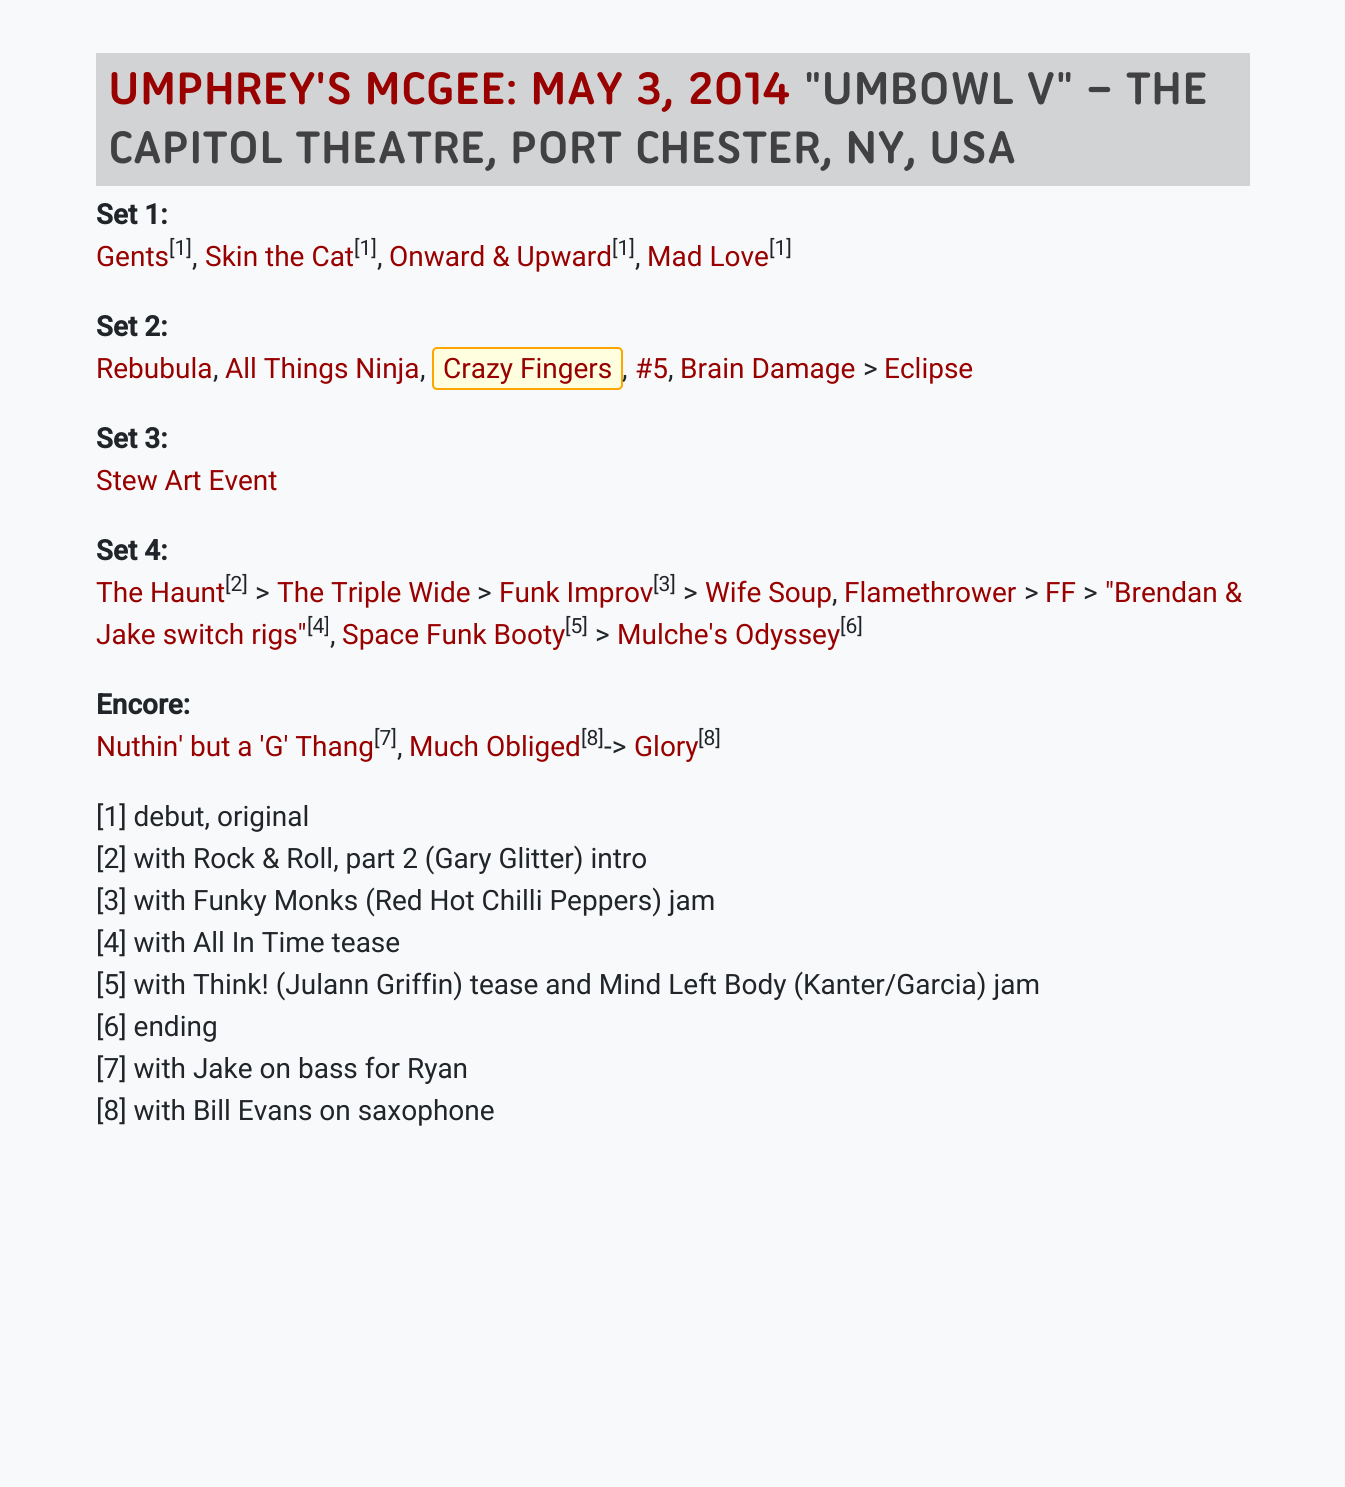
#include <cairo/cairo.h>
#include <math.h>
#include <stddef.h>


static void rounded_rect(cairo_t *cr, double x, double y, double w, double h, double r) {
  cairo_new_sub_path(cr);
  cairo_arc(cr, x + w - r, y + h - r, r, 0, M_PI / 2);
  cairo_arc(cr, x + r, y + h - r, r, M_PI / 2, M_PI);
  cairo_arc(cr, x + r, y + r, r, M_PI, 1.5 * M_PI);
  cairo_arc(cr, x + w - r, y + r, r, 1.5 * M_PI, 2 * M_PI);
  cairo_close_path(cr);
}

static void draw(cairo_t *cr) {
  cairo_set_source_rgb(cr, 248 / 255.0, 249 / 255.0, 250 / 255.0);
  cairo_paint(cr);
  cairo_set_source_rgb(cr, 209 / 255.0, 211 / 255.0, 212 / 255.0);
  cairo_rectangle(cr, 96, 53, 1154, 133);
  cairo_fill(cr);
  cairo_set_source_rgb(cr, 1, 1, 224 / 255.0);
  rounded_rect(cr, 433, 348, 189, 41, 4);
  cairo_fill_preserve(cr);
  cairo_set_source_rgb(cr, 1, 165 / 255.0, 0);
  cairo_stroke(cr);
  cairo_select_font_face(cr, "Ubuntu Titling", CAIRO_FONT_SLANT_NORMAL, CAIRO_FONT_WEIGHT_BOLD);
  cairo_set_font_size(cr, 49.25);
  cairo_set_source_rgb(cr, 153 / 255.0, 0, 0);
  cairo_move_to(cr, 108, 104);
  cairo_show_text(cr, "UMPHREY'S MCGEE: MAY 3, 2014");
  cairo_set_source_rgb(cr, 65 / 255.0, 64 / 255.0, 66 / 255.0);
  cairo_move_to(cr, 803, 104);
  cairo_show_text(cr, "\"UMBOWL V\" – THE");
  cairo_move_to(cr, 108, 163);
  cairo_show_text(cr, "CAPITOL THEATRE, PORT CHESTER, NY, USA");
  cairo_select_font_face(cr, "Roboto", CAIRO_FONT_SLANT_NORMAL, CAIRO_FONT_WEIGHT_BOLD);
  cairo_set_font_size(cr, 28);
  cairo_set_source_rgb(cr, 33 / 255.0, 37 / 255.0, 41 / 255.0);
  cairo_move_to(cr, 96, 224);
  cairo_show_text(cr, "Set 1:");
  cairo_select_font_face(cr, "Roboto", CAIRO_FONT_SLANT_NORMAL, CAIRO_FONT_WEIGHT_NORMAL);
  cairo_set_source_rgb(cr, 153 / 255.0, 0, 0);
  cairo_move_to(cr, 96, 266);
  cairo_show_text(cr, "Gents");
  cairo_set_font_size(cr, 21);
  cairo_set_source_rgb(cr, 33 / 255.0, 37 / 255.0, 41 / 255.0);
  cairo_move_to(cr, 169, 255);
  cairo_show_text(cr, "[1]");
  cairo_set_font_size(cr, 28);
  cairo_move_to(cr, 192, 266);
  cairo_show_text(cr, ",");
  cairo_set_source_rgb(cr, 153 / 255.0, 0, 0);
  cairo_move_to(cr, 205, 266);
  cairo_show_text(cr, "Skin the Cat");
  cairo_set_font_size(cr, 21);
  cairo_set_source_rgb(cr, 33 / 255.0, 37 / 255.0, 41 / 255.0);
  cairo_move_to(cr, 354, 255);
  cairo_show_text(cr, "[1]");
  cairo_set_font_size(cr, 28);
  cairo_move_to(cr, 377, 266);
  cairo_show_text(cr, ",");
  cairo_set_source_rgb(cr, 153 / 255.0, 0, 0);
  cairo_move_to(cr, 389, 266);
  cairo_show_text(cr, "Onward & Upward");
  cairo_set_font_size(cr, 21);
  cairo_set_source_rgb(cr, 33 / 255.0, 37 / 255.0, 41 / 255.0);
  cairo_move_to(cr, 612, 255);
  cairo_show_text(cr, "[1]");
  cairo_set_font_size(cr, 28);
  cairo_move_to(cr, 635, 266);
  cairo_show_text(cr, ",");
  cairo_set_source_rgb(cr, 153 / 255.0, 0, 0);
  cairo_move_to(cr, 647, 266);
  cairo_show_text(cr, "Mad Love");
  cairo_set_font_size(cr, 21);
  cairo_set_source_rgb(cr, 33 / 255.0, 37 / 255.0, 41 / 255.0);
  cairo_move_to(cr, 769, 255);
  cairo_show_text(cr, "[1]");
  cairo_select_font_face(cr, "Roboto", CAIRO_FONT_SLANT_NORMAL, CAIRO_FONT_WEIGHT_BOLD);
  cairo_set_font_size(cr, 28);
  cairo_move_to(cr, 96, 336);
  cairo_show_text(cr, "Set 2:");
  cairo_select_font_face(cr, "Roboto", CAIRO_FONT_SLANT_NORMAL, CAIRO_FONT_WEIGHT_NORMAL);
  cairo_set_source_rgb(cr, 153 / 255.0, 0, 0);
  cairo_move_to(cr, 96, 378);
  cairo_show_text(cr, "Rebubula");
  cairo_move_to(cr, 225, 378);
  cairo_show_text(cr, "All Things Ninja");
  cairo_move_to(cr, 443, 378);
  cairo_show_text(cr, "Crazy Fingers");
  cairo_move_to(cr, 635, 378);
  cairo_show_text(cr, "#5");
  cairo_move_to(cr, 680, 378);
  cairo_show_text(cr, "Brain Damage");
  cairo_set_source_rgb(cr, 33 / 255.0, 37 / 255.0, 41 / 255.0);
  cairo_move_to(cr, 863, 378);
  cairo_show_text(cr, ">");
  cairo_set_source_rgb(cr, 153 / 255.0, 0, 0);
  cairo_move_to(cr, 884, 378);
  cairo_show_text(cr, "Eclipse");
  cairo_set_source_rgb(cr, 33 / 255.0, 37 / 255.0, 41 / 255.0);
  cairo_move_to(cr, 213, 378);
  cairo_show_text(cr, ",");
  cairo_move_to(cr, 420, 378);
  cairo_show_text(cr, ",");
  cairo_move_to(cr, 622, 378);
  cairo_show_text(cr, ",");
  cairo_move_to(cr, 668, 378);
  cairo_show_text(cr, ",");
  cairo_select_font_face(cr, "Roboto", CAIRO_FONT_SLANT_NORMAL, CAIRO_FONT_WEIGHT_BOLD);
  cairo_move_to(cr, 96, 448);
  cairo_show_text(cr, "Set 3:");
  cairo_select_font_face(cr, "Roboto", CAIRO_FONT_SLANT_NORMAL, CAIRO_FONT_WEIGHT_NORMAL);
  cairo_set_source_rgb(cr, 153 / 255.0, 0, 0);
  cairo_move_to(cr, 96, 490);
  cairo_show_text(cr, "Stew Art Event");
  cairo_select_font_face(cr, "Roboto", CAIRO_FONT_SLANT_NORMAL, CAIRO_FONT_WEIGHT_BOLD);
  cairo_set_source_rgb(cr, 33 / 255.0, 37 / 255.0, 41 / 255.0);
  cairo_move_to(cr, 96, 560);
  cairo_show_text(cr, "Set 4:");
  cairo_select_font_face(cr, "Roboto", CAIRO_FONT_SLANT_NORMAL, CAIRO_FONT_WEIGHT_NORMAL);
  cairo_set_source_rgb(cr, 153 / 255.0, 0, 0);
  cairo_move_to(cr, 96, 602);
  cairo_show_text(cr, "The Haunt");
  cairo_set_font_size(cr, 21);
  cairo_set_source_rgb(cr, 33 / 255.0, 37 / 255.0, 41 / 255.0);
  cairo_move_to(cr, 225, 591);
  cairo_show_text(cr, "[2]");
  cairo_set_font_size(cr, 28);
  cairo_move_to(cr, 255, 602);
  cairo_show_text(cr, ">");
  cairo_set_source_rgb(cr, 153 / 255.0, 0, 0);
  cairo_move_to(cr, 277, 602);
  cairo_show_text(cr, "The Triple Wide");
  cairo_set_source_rgb(cr, 33 / 255.0, 37 / 255.0, 41 / 255.0);
  cairo_move_to(cr, 477, 602);
  cairo_show_text(cr, ">");
  cairo_set_source_rgb(cr, 153 / 255.0, 0, 0);
  cairo_move_to(cr, 499, 602);
  cairo_show_text(cr, "Funk Improv");
  cairo_set_font_size(cr, 21);
  cairo_set_source_rgb(cr, 33 / 255.0, 37 / 255.0, 41 / 255.0);
  cairo_move_to(cr, 653, 591);
  cairo_show_text(cr, "[3]");
  cairo_set_font_size(cr, 28);
  cairo_move_to(cr, 683, 602);
  cairo_show_text(cr, ">");
  cairo_set_source_rgb(cr, 153 / 255.0, 0, 0);
  cairo_move_to(cr, 705, 602);
  cairo_show_text(cr, "Wife Soup");
  cairo_move_to(cr, 844, 602);
  cairo_show_text(cr, "Flamethrower");
  cairo_set_source_rgb(cr, 33 / 255.0, 37 / 255.0, 41 / 255.0);
  cairo_move_to(cr, 1024, 602);
  cairo_show_text(cr, ">");
  cairo_set_source_rgb(cr, 153 / 255.0, 0, 0);
  cairo_move_to(cr, 1045, 602);
  cairo_show_text(cr, "FF");
  cairo_set_source_rgb(cr, 33 / 255.0, 37 / 255.0, 41 / 255.0);
  cairo_move_to(cr, 1083, 602);
  cairo_show_text(cr, ">");
  cairo_set_source_rgb(cr, 153 / 255.0, 0, 0);
  cairo_move_to(cr, 1105, 602);
  cairo_show_text(cr, "\"Brendan &");
  cairo_set_source_rgb(cr, 33 / 255.0, 37 / 255.0, 41 / 255.0);
  cairo_move_to(cr, 832, 602);
  cairo_show_text(cr, ",");
  cairo_set_source_rgb(cr, 153 / 255.0, 0, 0);
  cairo_move_to(cr, 96, 644);
  cairo_show_text(cr, "Jake switch rigs\"");
  cairo_set_font_size(cr, 21);
  cairo_set_source_rgb(cr, 33 / 255.0, 37 / 255.0, 41 / 255.0);
  cairo_move_to(cr, 307, 633);
  cairo_show_text(cr, "[4]");
  cairo_set_font_size(cr, 28);
  cairo_set_source_rgb(cr, 153 / 255.0, 0, 0);
  cairo_move_to(cr, 342, 644);
  cairo_show_text(cr, "Space Funk Booty");
  cairo_set_font_size(cr, 21);
  cairo_set_source_rgb(cr, 33 / 255.0, 37 / 255.0, 41 / 255.0);
  cairo_move_to(cr, 565, 633);
  cairo_show_text(cr, "[5]");
  cairo_set_font_size(cr, 28);
  cairo_move_to(cr, 595, 644);
  cairo_show_text(cr, ">");
  cairo_set_source_rgb(cr, 153 / 255.0, 0, 0);
  cairo_move_to(cr, 617, 644);
  cairo_show_text(cr, "Mulche's Odyssey");
  cairo_set_font_size(cr, 21);
  cairo_set_source_rgb(cr, 33 / 255.0, 37 / 255.0, 41 / 255.0);
  cairo_move_to(cr, 840, 633);
  cairo_show_text(cr, "[6]");
  cairo_set_font_size(cr, 28);
  cairo_move_to(cr, 330, 644);
  cairo_show_text(cr, ",");
  cairo_select_font_face(cr, "Roboto", CAIRO_FONT_SLANT_NORMAL, CAIRO_FONT_WEIGHT_BOLD);
  cairo_move_to(cr, 96, 714);
  cairo_show_text(cr, "Encore:");
  cairo_select_font_face(cr, "Roboto", CAIRO_FONT_SLANT_NORMAL, CAIRO_FONT_WEIGHT_NORMAL);
  cairo_set_source_rgb(cr, 153 / 255.0, 0, 0);
  cairo_move_to(cr, 96, 756);
  cairo_show_text(cr, "Nuthin' but a 'G' Thang");
  cairo_set_font_size(cr, 21);
  cairo_set_source_rgb(cr, 33 / 255.0, 37 / 255.0, 41 / 255.0);
  cairo_move_to(cr, 374, 745);
  cairo_show_text(cr, "[7]");
  cairo_set_font_size(cr, 28);
  cairo_set_source_rgb(cr, 153 / 255.0, 0, 0);
  cairo_move_to(cr, 409, 756);
  cairo_show_text(cr, "Much Obliged");
  cairo_set_font_size(cr, 21);
  cairo_set_source_rgb(cr, 33 / 255.0, 37 / 255.0, 41 / 255.0);
  cairo_move_to(cr, 581, 745);
  cairo_show_text(cr, "[8]");
  cairo_set_font_size(cr, 28);
  cairo_move_to(cr, 604, 756);
  cairo_show_text(cr, "->");
  cairo_set_source_rgb(cr, 153 / 255.0, 0, 0);
  cairo_move_to(cr, 634, 756);
  cairo_show_text(cr, "Glory");
  cairo_set_font_size(cr, 21);
  cairo_set_source_rgb(cr, 33 / 255.0, 37 / 255.0, 41 / 255.0);
  cairo_move_to(cr, 698, 745);
  cairo_show_text(cr, "[8]");
  cairo_set_font_size(cr, 28);
  cairo_move_to(cr, 397, 756);
  cairo_show_text(cr, ",");
  cairo_move_to(cr, 96, 826);
  cairo_show_text(cr, "[1] debut, original");
  cairo_move_to(cr, 96, 868);
  cairo_show_text(cr, "[2] with Rock & Roll, part 2 (Gary Glitter) intro");
  cairo_move_to(cr, 96, 910);
  cairo_show_text(cr, "[3] with Funky Monks (Red Hot Chilli Peppers) jam");
  cairo_move_to(cr, 96, 952);
  cairo_show_text(cr, "[4] with All In Time tease");
  cairo_move_to(cr, 96, 994);
  cairo_show_text(cr, "[5] with Think! (Julann Griffin) tease and Mind Left Body (Kanter/Garcia) jam");
  cairo_move_to(cr, 96, 1036);
  cairo_show_text(cr, "[6] ending");
  cairo_move_to(cr, 96, 1078);
  cairo_show_text(cr, "[7] with Jake on bass for Ryan");
  cairo_move_to(cr, 96, 1120);
  cairo_show_text(cr, "[8] with Bill Evans on saxophone");
}

int main(void) {
  cairo_surface_t *surface = cairo_image_surface_create(CAIRO_FORMAT_RGB24, 1345, 1487);
  cairo_t *cr = cairo_create(surface);
  cairo_font_options_t *options = cairo_font_options_create();
  cairo_font_options_set_hint_metrics(options, CAIRO_HINT_METRICS_OFF);
  cairo_font_options_set_hint_style(options, CAIRO_HINT_STYLE_NONE);
  cairo_set_font_options(cr, options);
  cairo_set_miter_limit(cr, 4);
  draw(cr);
  cairo_surface_write_to_png(surface, "out.png");
  cairo_font_options_destroy(options);
  cairo_destroy(cr);
  cairo_surface_destroy(surface);
  return 0;
}
